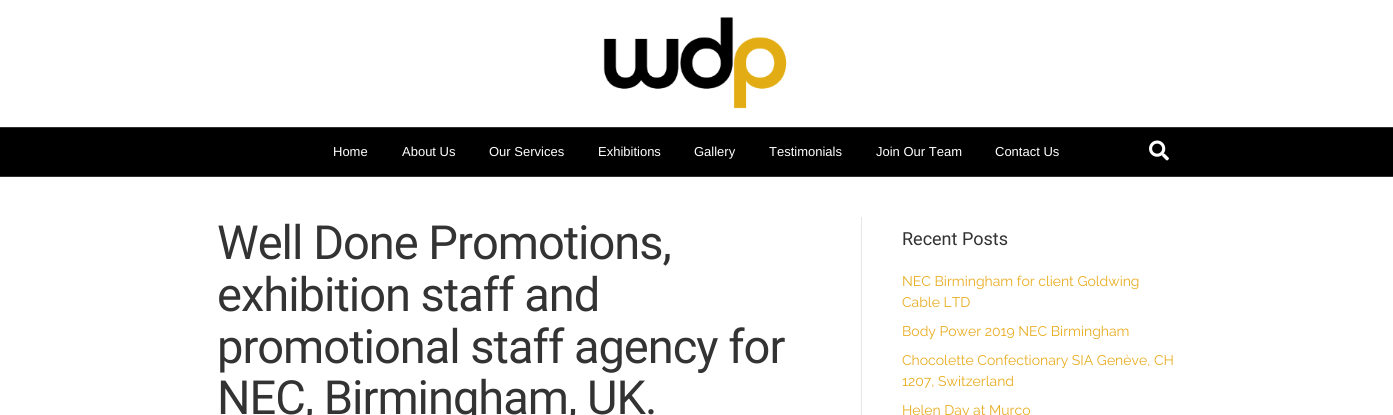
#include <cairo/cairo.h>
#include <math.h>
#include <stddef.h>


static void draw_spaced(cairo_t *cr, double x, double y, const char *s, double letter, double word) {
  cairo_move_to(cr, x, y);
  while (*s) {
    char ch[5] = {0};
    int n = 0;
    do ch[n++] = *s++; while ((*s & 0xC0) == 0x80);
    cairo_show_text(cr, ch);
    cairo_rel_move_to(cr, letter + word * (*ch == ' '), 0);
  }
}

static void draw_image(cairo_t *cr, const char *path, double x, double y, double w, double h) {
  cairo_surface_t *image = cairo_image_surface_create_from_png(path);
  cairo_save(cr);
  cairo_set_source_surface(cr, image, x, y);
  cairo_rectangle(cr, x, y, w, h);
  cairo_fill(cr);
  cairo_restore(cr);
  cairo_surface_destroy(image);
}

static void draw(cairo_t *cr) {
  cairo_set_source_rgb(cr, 1, 1, 1);
  cairo_paint(cr);
  draw_image(cr, "images/1.png", 603, 17, 184, 94);
  cairo_set_source_rgb(cr, 0, 0, 0);
  cairo_rectangle(cr, 0, 128, 1393, 48);
  cairo_fill(cr);
  cairo_set_source_rgb(cr, 48 / 255.0, 48 / 255.0, 48 / 255.0);
  cairo_rectangle(cr, 0, 127, 1393, 1);
  cairo_fill(cr);
  cairo_rectangle(cr, 0, 176, 1393, 1);
  cairo_fill(cr);
  draw_image(cr, "images/2.png", 1149, 140, 20, 21);
  cairo_set_source_rgb(cr, 230 / 255.0, 230 / 255.0, 230 / 255.0);
  cairo_rectangle(cr, 861, 217, 1, 198);
  cairo_fill(cr);
  cairo_select_font_face(cr, "Liberation Sans", CAIRO_FONT_SLANT_NORMAL, CAIRO_FONT_WEIGHT_NORMAL);
  cairo_set_font_size(cr, 13);
  cairo_set_source_rgb(cr, 1, 1, 1);
  cairo_move_to(cr, 333, 156);
  cairo_show_text(cr, "Home");
  cairo_move_to(cr, 402, 156);
  cairo_show_text(cr, "About Us");
  cairo_move_to(cr, 489, 156);
  cairo_show_text(cr, "Our Services");
  cairo_move_to(cr, 598, 156);
  cairo_show_text(cr, "Exhibitions");
  cairo_move_to(cr, 694, 156);
  cairo_show_text(cr, "Gallery");
  cairo_move_to(cr, 769, 156);
  cairo_show_text(cr, "Testimonials");
  cairo_move_to(cr, 876, 156);
  cairo_show_text(cr, "Join Our Team");
  cairo_move_to(cr, 995, 156);
  cairo_show_text(cr, "Contact Us");
  cairo_select_font_face(cr, "Roboto", CAIRO_FONT_SLANT_NORMAL, CAIRO_FONT_WEIGHT_NORMAL);
  cairo_set_font_size(cr, 47);
  cairo_set_source_rgb(cr, 51 / 255.0, 51 / 255.0, 51 / 255.0);
  draw_spaced(cr, 217, 259, "Well Done Promotions,", -1, 0);
  draw_spaced(cr, 217, 311, "exhibition staff and", -1, 0);
  draw_spaced(cr, 217, 363, "promotional staff agency for", -1, 0);
  draw_spaced(cr, 217, 414, "NEC, Birmingham, UK.", -1, 0);
  cairo_set_font_size(cr, 18);
  cairo_move_to(cr, 902, 245);
  cairo_show_text(cr, "Recent Posts");
  cairo_select_font_face(cr, "Raleway", CAIRO_FONT_SLANT_NORMAL, CAIRO_FONT_WEIGHT_NORMAL);
  cairo_set_font_size(cr, 14);
  cairo_set_source_rgb(cr, 232 / 255.0, 172 / 255.0, 32 / 255.0);
  cairo_move_to(cr, 902, 286);
  cairo_show_text(cr, "NEC Birmingham for client Goldwing");
  cairo_move_to(cr, 902, 307);
  cairo_show_text(cr, "Cable LTD");
  cairo_move_to(cr, 902, 336);
  cairo_show_text(cr, "Body Power 2019 NEC Birmingham");
  cairo_move_to(cr, 902, 365);
  cairo_show_text(cr, "Chocolette Confectionary SIA Genève, CH");
  cairo_move_to(cr, 902, 386);
  cairo_show_text(cr, "1207, Switzerland");
  cairo_move_to(cr, 902, 415);
  cairo_show_text(cr, "Helen Day at Murco");
}

int main(void) {
  cairo_surface_t *surface = cairo_image_surface_create(CAIRO_FORMAT_RGB24, 1393, 415);
  cairo_t *cr = cairo_create(surface);
  cairo_font_options_t *options = cairo_font_options_create();
  cairo_font_options_set_hint_metrics(options, CAIRO_HINT_METRICS_OFF);
  cairo_font_options_set_hint_style(options, CAIRO_HINT_STYLE_NONE);
  cairo_set_font_options(cr, options);
  cairo_set_miter_limit(cr, 4);
  draw(cr);
  cairo_surface_write_to_png(surface, "out.png");
  cairo_font_options_destroy(options);
  cairo_destroy(cr);
  cairo_surface_destroy(surface);
  return 0;
}
